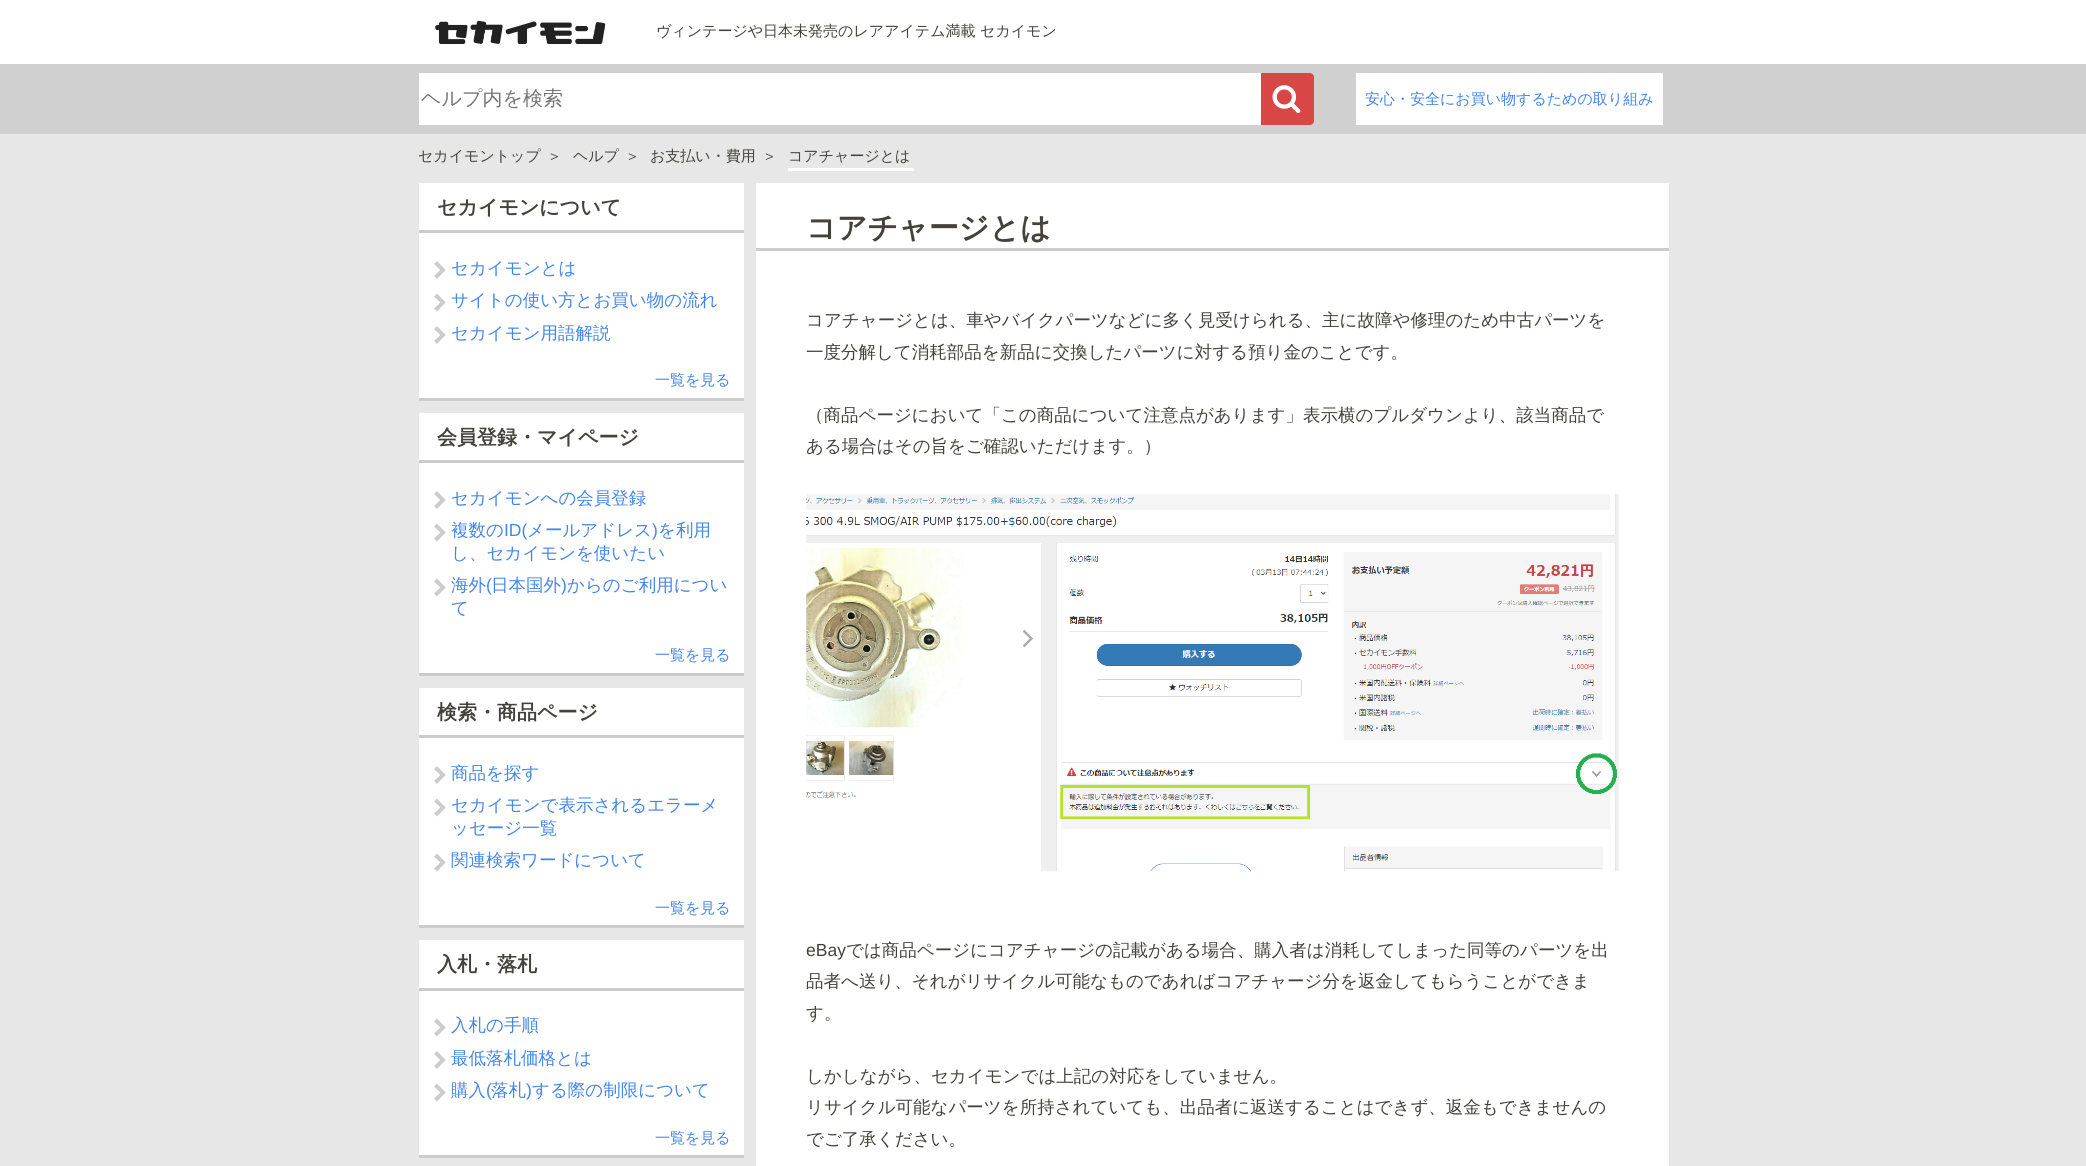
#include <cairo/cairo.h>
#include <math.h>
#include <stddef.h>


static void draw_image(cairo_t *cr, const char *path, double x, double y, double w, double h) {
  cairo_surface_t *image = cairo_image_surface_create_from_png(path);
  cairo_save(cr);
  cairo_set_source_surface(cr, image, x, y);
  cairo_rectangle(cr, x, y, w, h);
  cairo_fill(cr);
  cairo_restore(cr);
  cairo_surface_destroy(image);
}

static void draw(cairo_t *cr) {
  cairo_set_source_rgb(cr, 231 / 255.0, 231 / 255.0, 231 / 255.0);
  cairo_paint(cr);
  cairo_set_source_rgb(cr, 1, 1, 1);
  cairo_rectangle(cr, 0, 0, 2086, 64);
  cairo_fill(cr);
  draw_image(cr, "images/1.png", 435, 20, 171, 24);
  cairo_set_source_rgb(cr, 208 / 255.0, 208 / 255.0, 208 / 255.0);
  cairo_rectangle(cr, 0, 64, 2086, 70);
  cairo_fill(cr);
  cairo_set_source_rgb(cr, 1, 1, 1);
  cairo_rectangle(cr, 419, 73, 842, 52);
  cairo_fill(cr);
  cairo_set_source_rgb(cr, 217 / 255.0, 70 / 255.0, 70 / 255.0);
  cairo_new_path(cr);
  cairo_move_to(cr, 1261, 73);
  cairo_line_to(cr, 1310, 73);
  cairo_curve_to(cr, 1312, 73, 1314, 75, 1314, 77);
  cairo_line_to(cr, 1314, 121);
  cairo_curve_to(cr, 1314, 123, 1312, 125, 1310, 125);
  cairo_line_to(cr, 1261, 125);
  cairo_close_path(cr);
  cairo_fill(cr);
  draw_image(cr, "images/2.png", 1272, 85, 29, 28);
  cairo_set_source_rgb(cr, 1, 1, 1);
  cairo_rectangle(cr, 1356, 73, 307, 52);
  cairo_fill(cr);
  cairo_rectangle(cr, 788, 168, 126, 3);
  cairo_fill(cr);
  cairo_rectangle(cr, 419, 183, 325, 215);
  cairo_fill(cr);
  cairo_set_source_rgb(cr, 204 / 255.0, 204 / 255.0, 204 / 255.0);
  cairo_rectangle(cr, 419, 398, 325, 3);
  cairo_fill(cr);
  cairo_rectangle(cr, 419, 230, 325, 3);
  cairo_fill(cr);
  cairo_new_path(cr);
  cairo_move_to(cr, 437, 261);
  cairo_line_to(cr, 445.5, 270);
  cairo_line_to(cr, 443, 272.5);
  cairo_line_to(cr, 434, 264);
  cairo_close_path(cr);
  cairo_fill(cr);
  cairo_new_path(cr);
  cairo_move_to(cr, 443, 267.5);
  cairo_line_to(cr, 445.5, 270);
  cairo_line_to(cr, 437, 279);
  cairo_line_to(cr, 434, 276);
  cairo_close_path(cr);
  cairo_move_to(cr, 437, 293.5);
  cairo_line_to(cr, 445.5, 302.5);
  cairo_line_to(cr, 443, 305);
  cairo_line_to(cr, 434, 296.5);
  cairo_close_path(cr);
  cairo_fill(cr);
  cairo_new_path(cr);
  cairo_move_to(cr, 443, 300);
  cairo_line_to(cr, 445.5, 302.5);
  cairo_line_to(cr, 437, 311.5);
  cairo_line_to(cr, 434, 308.5);
  cairo_close_path(cr);
  cairo_move_to(cr, 437, 326);
  cairo_line_to(cr, 445.5, 335);
  cairo_line_to(cr, 443, 337.5);
  cairo_line_to(cr, 434, 329);
  cairo_close_path(cr);
  cairo_fill(cr);
  cairo_new_path(cr);
  cairo_move_to(cr, 443, 332.5);
  cairo_line_to(cr, 445.5, 335);
  cairo_line_to(cr, 437, 344);
  cairo_line_to(cr, 434, 341);
  cairo_close_path(cr);
  cairo_fill(cr);
  cairo_set_source_rgb(cr, 1, 1, 1);
  cairo_rectangle(cr, 419, 413, 325, 260);
  cairo_fill(cr);
  cairo_set_source_rgb(cr, 204 / 255.0, 204 / 255.0, 204 / 255.0);
  cairo_rectangle(cr, 419, 673, 325, 3);
  cairo_fill(cr);
  cairo_rectangle(cr, 419, 460, 325, 3);
  cairo_fill(cr);
  cairo_new_path(cr);
  cairo_move_to(cr, 437, 491);
  cairo_line_to(cr, 445.5, 500);
  cairo_line_to(cr, 443, 502.5);
  cairo_line_to(cr, 434, 494);
  cairo_close_path(cr);
  cairo_fill(cr);
  cairo_new_path(cr);
  cairo_move_to(cr, 443, 497.5);
  cairo_line_to(cr, 445.5, 500);
  cairo_line_to(cr, 437, 509);
  cairo_line_to(cr, 434, 506);
  cairo_close_path(cr);
  cairo_move_to(cr, 437, 523.5);
  cairo_line_to(cr, 445.5, 532.5);
  cairo_line_to(cr, 443, 535);
  cairo_line_to(cr, 434, 526.5);
  cairo_close_path(cr);
  cairo_fill(cr);
  cairo_new_path(cr);
  cairo_move_to(cr, 443, 530);
  cairo_line_to(cr, 445.5, 532.5);
  cairo_line_to(cr, 437, 541.5);
  cairo_line_to(cr, 434, 538.5);
  cairo_close_path(cr);
  cairo_move_to(cr, 437, 578.5);
  cairo_line_to(cr, 445.5, 587.5);
  cairo_line_to(cr, 443, 590);
  cairo_line_to(cr, 434, 581.5);
  cairo_close_path(cr);
  cairo_fill(cr);
  cairo_new_path(cr);
  cairo_move_to(cr, 443, 585);
  cairo_line_to(cr, 445.5, 587.5);
  cairo_line_to(cr, 437, 596.5);
  cairo_line_to(cr, 434, 593.5);
  cairo_close_path(cr);
  cairo_fill(cr);
  cairo_set_source_rgb(cr, 1, 1, 1);
  cairo_rectangle(cr, 419, 688, 325, 237);
  cairo_fill(cr);
  cairo_set_source_rgb(cr, 204 / 255.0, 204 / 255.0, 204 / 255.0);
  cairo_rectangle(cr, 419, 925, 325, 3);
  cairo_fill(cr);
  cairo_rectangle(cr, 419, 735, 325, 3);
  cairo_fill(cr);
  cairo_new_path(cr);
  cairo_move_to(cr, 437, 766);
  cairo_line_to(cr, 445.5, 775);
  cairo_line_to(cr, 443, 777.5);
  cairo_line_to(cr, 434, 769);
  cairo_close_path(cr);
  cairo_fill(cr);
  cairo_new_path(cr);
  cairo_move_to(cr, 443, 772.5);
  cairo_line_to(cr, 445.5, 775);
  cairo_line_to(cr, 437, 784);
  cairo_line_to(cr, 434, 781);
  cairo_close_path(cr);
  cairo_move_to(cr, 437, 798.5);
  cairo_line_to(cr, 445.5, 807.5);
  cairo_line_to(cr, 443, 810);
  cairo_line_to(cr, 434, 801.5);
  cairo_close_path(cr);
  cairo_fill(cr);
  cairo_new_path(cr);
  cairo_move_to(cr, 443, 805);
  cairo_line_to(cr, 445.5, 807.5);
  cairo_line_to(cr, 437, 816.5);
  cairo_line_to(cr, 434, 813.5);
  cairo_close_path(cr);
  cairo_move_to(cr, 437, 853.5);
  cairo_line_to(cr, 445.5, 862.5);
  cairo_line_to(cr, 443, 865);
  cairo_line_to(cr, 434, 856.5);
  cairo_close_path(cr);
  cairo_fill(cr);
  cairo_new_path(cr);
  cairo_move_to(cr, 443, 860);
  cairo_line_to(cr, 445.5, 862.5);
  cairo_line_to(cr, 437, 871.5);
  cairo_line_to(cr, 434, 868.5);
  cairo_close_path(cr);
  cairo_fill(cr);
  cairo_set_source_rgb(cr, 1, 1, 1);
  cairo_rectangle(cr, 419, 940, 325, 215);
  cairo_fill(cr);
  cairo_set_source_rgb(cr, 204 / 255.0, 204 / 255.0, 204 / 255.0);
  cairo_rectangle(cr, 419, 1155, 325, 3);
  cairo_fill(cr);
  cairo_rectangle(cr, 419, 988, 325, 3);
  cairo_fill(cr);
  cairo_new_path(cr);
  cairo_move_to(cr, 437, 1018.5);
  cairo_line_to(cr, 445.5, 1027.5);
  cairo_line_to(cr, 443, 1030);
  cairo_line_to(cr, 434, 1021.5);
  cairo_close_path(cr);
  cairo_fill(cr);
  cairo_new_path(cr);
  cairo_move_to(cr, 443, 1025);
  cairo_line_to(cr, 445.5, 1027.5);
  cairo_line_to(cr, 437, 1036.5);
  cairo_line_to(cr, 434, 1033.5);
  cairo_close_path(cr);
  cairo_move_to(cr, 437, 1051);
  cairo_line_to(cr, 445.5, 1060);
  cairo_line_to(cr, 443, 1062.5);
  cairo_line_to(cr, 434, 1054);
  cairo_close_path(cr);
  cairo_fill(cr);
  cairo_new_path(cr);
  cairo_move_to(cr, 443, 1057.5);
  cairo_line_to(cr, 445.5, 1060);
  cairo_line_to(cr, 437, 1069);
  cairo_line_to(cr, 434, 1066);
  cairo_close_path(cr);
  cairo_move_to(cr, 437, 1083.5);
  cairo_line_to(cr, 445.5, 1092.5);
  cairo_line_to(cr, 443, 1095);
  cairo_line_to(cr, 434, 1086.5);
  cairo_close_path(cr);
  cairo_fill(cr);
  cairo_new_path(cr);
  cairo_move_to(cr, 443, 1090);
  cairo_line_to(cr, 445.5, 1092.5);
  cairo_line_to(cr, 437, 1101.5);
  cairo_line_to(cr, 434, 1098.5);
  cairo_close_path(cr);
  cairo_fill(cr);
  cairo_set_source_rgb(cr, 1, 1, 1);
  cairo_rectangle(cr, 756, 183, 913, 983);
  cairo_fill(cr);
  cairo_set_source_rgb(cr, 204 / 255.0, 204 / 255.0, 204 / 255.0);
  cairo_rectangle(cr, 756, 248, 913, 3);
  cairo_fill(cr);
  draw_image(cr, "images/3.png", 806, 493, 813, 379);
  cairo_select_font_face(cr, "WenQuanYi Zen Hei Medium", CAIRO_FONT_SLANT_NORMAL, CAIRO_FONT_WEIGHT_NORMAL);
  cairo_set_font_size(cr, 15);
  cairo_set_source_rgb(cr, 68 / 255.0, 66 / 255.0, 59 / 255.0);
  cairo_move_to(cr, 656, 36);
  cairo_show_text(cr, "ヴィンテージや日本未発売のレアアイテム満載 セカイモン");
  cairo_set_font_size(cr, 20);
  cairo_set_source_rgb(cr, 117 / 255.0, 117 / 255.0, 117 / 255.0);
  cairo_move_to(cr, 421, 105);
  cairo_show_text(cr, "ヘルプ内を検索");
  cairo_set_font_size(cr, 15);
  cairo_set_source_rgb(cr, 67 / 255.0, 134 / 255.0, 236 / 255.0);
  cairo_move_to(cr, 1365, 104);
  cairo_show_text(cr, "安心・安全にお買い物するための取り組み");
  cairo_set_source_rgb(cr, 68 / 255.0, 66 / 255.0, 59 / 255.0);
  cairo_move_to(cr, 418, 161);
  cairo_show_text(cr, "セカイモントップ");
  cairo_move_to(cr, 547, 161);
  cairo_show_text(cr, "＞");
  cairo_move_to(cr, 573, 161);
  cairo_show_text(cr, "ヘルプ");
  cairo_move_to(cr, 625, 161);
  cairo_show_text(cr, "＞");
  cairo_move_to(cr, 650, 161);
  cairo_show_text(cr, "お支払い・費用");
  cairo_move_to(cr, 762, 161);
  cairo_show_text(cr, "＞");
  cairo_move_to(cr, 788, 161);
  cairo_show_text(cr, "コアチャージとは");
  cairo_select_font_face(cr, "WenQuanYi Zen Hei", CAIRO_FONT_SLANT_NORMAL, CAIRO_FONT_WEIGHT_BOLD);
  cairo_set_font_size(cr, 20);
  cairo_move_to(cr, 437, 214);
  cairo_show_text(cr, "セカイモンについて");
  cairo_select_font_face(cr, "WenQuanYi Zen Hei Medium", CAIRO_FONT_SLANT_NORMAL, CAIRO_FONT_WEIGHT_NORMAL);
  cairo_set_font_size(cr, 17.5);
  cairo_set_source_rgb(cr, 67 / 255.0, 134 / 255.0, 236 / 255.0);
  cairo_move_to(cr, 451, 274);
  cairo_show_text(cr, "セカイモンとは");
  cairo_move_to(cr, 451, 306);
  cairo_show_text(cr, "サイトの使い方とお買い物の流れ");
  cairo_move_to(cr, 451, 339);
  cairo_show_text(cr, "セカイモン用語解説");
  cairo_set_font_size(cr, 15);
  cairo_move_to(cr, 655, 385);
  cairo_show_text(cr, "一覧を見る");
  cairo_select_font_face(cr, "WenQuanYi Zen Hei", CAIRO_FONT_SLANT_NORMAL, CAIRO_FONT_WEIGHT_BOLD);
  cairo_set_font_size(cr, 20);
  cairo_set_source_rgb(cr, 68 / 255.0, 66 / 255.0, 59 / 255.0);
  cairo_move_to(cr, 437, 444);
  cairo_show_text(cr, "会員登録・マイページ");
  cairo_select_font_face(cr, "WenQuanYi Zen Hei Medium", CAIRO_FONT_SLANT_NORMAL, CAIRO_FONT_WEIGHT_NORMAL);
  cairo_set_font_size(cr, 17.5);
  cairo_set_source_rgb(cr, 67 / 255.0, 134 / 255.0, 236 / 255.0);
  cairo_move_to(cr, 451, 504);
  cairo_show_text(cr, "セカイモンへの会員登録");
  cairo_move_to(cr, 451, 536);
  cairo_show_text(cr, "複数の");
  cairo_select_font_face(cr, "Liberation Sans", CAIRO_FONT_SLANT_NORMAL, CAIRO_FONT_WEIGHT_NORMAL);
  cairo_move_to(cr, 504, 536);
  cairo_show_text(cr, "ID(");
  cairo_select_font_face(cr, "WenQuanYi Zen Hei Medium", CAIRO_FONT_SLANT_NORMAL, CAIRO_FONT_WEIGHT_NORMAL);
  cairo_move_to(cr, 527, 536);
  cairo_show_text(cr, "メールアドレス");
  cairo_select_font_face(cr, "Liberation Sans", CAIRO_FONT_SLANT_NORMAL, CAIRO_FONT_WEIGHT_NORMAL);
  cairo_move_to(cr, 652, 536);
  cairo_show_text(cr, ")");
  cairo_select_font_face(cr, "WenQuanYi Zen Hei Medium", CAIRO_FONT_SLANT_NORMAL, CAIRO_FONT_WEIGHT_NORMAL);
  cairo_move_to(cr, 658, 536);
  cairo_show_text(cr, "を利用");
  cairo_move_to(cr, 451, 559);
  cairo_show_text(cr, "し、セカイモンを使いたい");
  cairo_move_to(cr, 451, 591);
  cairo_show_text(cr, "海外");
  cairo_select_font_face(cr, "Liberation Sans", CAIRO_FONT_SLANT_NORMAL, CAIRO_FONT_WEIGHT_NORMAL);
  cairo_move_to(cr, 486, 591);
  cairo_show_text(cr, "(");
  cairo_select_font_face(cr, "WenQuanYi Zen Hei Medium", CAIRO_FONT_SLANT_NORMAL, CAIRO_FONT_WEIGHT_NORMAL);
  cairo_move_to(cr, 491, 591);
  cairo_show_text(cr, "日本国外");
  cairo_select_font_face(cr, "Liberation Sans", CAIRO_FONT_SLANT_NORMAL, CAIRO_FONT_WEIGHT_NORMAL);
  cairo_move_to(cr, 561, 591);
  cairo_show_text(cr, ")");
  cairo_select_font_face(cr, "WenQuanYi Zen Hei Medium", CAIRO_FONT_SLANT_NORMAL, CAIRO_FONT_WEIGHT_NORMAL);
  cairo_move_to(cr, 567, 591);
  cairo_show_text(cr, "からのご利用につい");
  cairo_move_to(cr, 451, 614);
  cairo_show_text(cr, "て");
  cairo_set_font_size(cr, 15);
  cairo_move_to(cr, 655, 660);
  cairo_show_text(cr, "一覧を見る");
  cairo_select_font_face(cr, "WenQuanYi Zen Hei", CAIRO_FONT_SLANT_NORMAL, CAIRO_FONT_WEIGHT_BOLD);
  cairo_set_font_size(cr, 20);
  cairo_set_source_rgb(cr, 68 / 255.0, 66 / 255.0, 59 / 255.0);
  cairo_move_to(cr, 437, 719);
  cairo_show_text(cr, "検索・商品ページ");
  cairo_select_font_face(cr, "WenQuanYi Zen Hei Medium", CAIRO_FONT_SLANT_NORMAL, CAIRO_FONT_WEIGHT_NORMAL);
  cairo_set_font_size(cr, 17.5);
  cairo_set_source_rgb(cr, 67 / 255.0, 134 / 255.0, 236 / 255.0);
  cairo_move_to(cr, 451, 779);
  cairo_show_text(cr, "商品を探す");
  cairo_move_to(cr, 451, 811);
  cairo_show_text(cr, "セカイモンで表示されるエラーメ");
  cairo_move_to(cr, 451, 834);
  cairo_show_text(cr, "ッセージ一覧");
  cairo_move_to(cr, 451, 866);
  cairo_show_text(cr, "関連検索ワードについて");
  cairo_set_font_size(cr, 15);
  cairo_move_to(cr, 655, 913);
  cairo_show_text(cr, "一覧を見る");
  cairo_select_font_face(cr, "WenQuanYi Zen Hei", CAIRO_FONT_SLANT_NORMAL, CAIRO_FONT_WEIGHT_BOLD);
  cairo_set_font_size(cr, 20);
  cairo_set_source_rgb(cr, 68 / 255.0, 66 / 255.0, 59 / 255.0);
  cairo_move_to(cr, 437, 971);
  cairo_show_text(cr, "入札・落札");
  cairo_select_font_face(cr, "WenQuanYi Zen Hei Medium", CAIRO_FONT_SLANT_NORMAL, CAIRO_FONT_WEIGHT_NORMAL);
  cairo_set_font_size(cr, 17.5);
  cairo_set_source_rgb(cr, 67 / 255.0, 134 / 255.0, 236 / 255.0);
  cairo_move_to(cr, 451, 1031);
  cairo_show_text(cr, "入札の手順");
  cairo_move_to(cr, 451, 1064);
  cairo_show_text(cr, "最低落札価格とは");
  cairo_move_to(cr, 451, 1096);
  cairo_show_text(cr, "購入");
  cairo_select_font_face(cr, "Liberation Sans", CAIRO_FONT_SLANT_NORMAL, CAIRO_FONT_WEIGHT_NORMAL);
  cairo_move_to(cr, 486, 1096);
  cairo_show_text(cr, "(");
  cairo_select_font_face(cr, "WenQuanYi Zen Hei Medium", CAIRO_FONT_SLANT_NORMAL, CAIRO_FONT_WEIGHT_NORMAL);
  cairo_move_to(cr, 491, 1096);
  cairo_show_text(cr, "落札");
  cairo_select_font_face(cr, "Liberation Sans", CAIRO_FONT_SLANT_NORMAL, CAIRO_FONT_WEIGHT_NORMAL);
  cairo_move_to(cr, 526, 1096);
  cairo_show_text(cr, ")");
  cairo_select_font_face(cr, "WenQuanYi Zen Hei Medium", CAIRO_FONT_SLANT_NORMAL, CAIRO_FONT_WEIGHT_NORMAL);
  cairo_move_to(cr, 532, 1096);
  cairo_show_text(cr, "する際の制限について");
  cairo_set_font_size(cr, 15);
  cairo_move_to(cr, 655, 1143);
  cairo_show_text(cr, "一覧を見る");
  cairo_select_font_face(cr, "WenQuanYi Zen Hei", CAIRO_FONT_SLANT_NORMAL, CAIRO_FONT_WEIGHT_BOLD);
  cairo_set_font_size(cr, 30);
  cairo_set_source_rgb(cr, 68 / 255.0, 66 / 255.0, 59 / 255.0);
  cairo_move_to(cr, 806, 238);
  cairo_show_text(cr, "コアチャージとは");
  cairo_select_font_face(cr, "WenQuanYi Zen Hei Medium", CAIRO_FONT_SLANT_NORMAL, CAIRO_FONT_WEIGHT_NORMAL);
  cairo_set_font_size(cr, 17.5);
  cairo_move_to(cr, 806, 326);
  cairo_show_text(cr, "コアチャージとは、車やバイクパーツなどに多く見受けられる、主に故障や修理のため中古パーツを");
  cairo_move_to(cr, 806, 358);
  cairo_show_text(cr, "一度分解して消耗部品を新品に交換したパーツに対する預り金のことです。");
  cairo_move_to(cr, 806, 421);
  cairo_show_text(cr, "（商品ページにおいて「この商品について注意点があります」表示横のプルダウンより、該当商品で");
  cairo_move_to(cr, 806, 452);
  cairo_show_text(cr, "ある場合はその旨をご確認いただけます。）");
  cairo_select_font_face(cr, "Liberation Sans", CAIRO_FONT_SLANT_NORMAL, CAIRO_FONT_WEIGHT_NORMAL);
  cairo_move_to(cr, 806, 956);
  cairo_show_text(cr, "eBay");
  cairo_select_font_face(cr, "WenQuanYi Zen Hei Medium", CAIRO_FONT_SLANT_NORMAL, CAIRO_FONT_WEIGHT_NORMAL);
  cairo_move_to(cr, 846, 956);
  cairo_show_text(cr, "では商品ページにコアチャージの記載がある場合、購入者は消耗してしまった同等のパーツを出");
  cairo_move_to(cr, 806, 987);
  cairo_show_text(cr, "品者へ送り、それがリサイクル可能なものであればコアチャージ分を返金してもらうことができま");
  cairo_move_to(cr, 806, 1019);
  cairo_show_text(cr, "す。");
  cairo_move_to(cr, 806, 1082);
  cairo_show_text(cr, "しかしながら、セカイモンでは上記の対応をしていません。");
  cairo_move_to(cr, 806, 1113);
  cairo_show_text(cr, "リサイクル可能なパーツを所持されていても、出品者に返送することはできず、返金もできませんの");
  cairo_move_to(cr, 806, 1145);
  cairo_show_text(cr, "でご了承ください。");
}

int main(void) {
  cairo_surface_t *surface = cairo_image_surface_create(CAIRO_FORMAT_RGB24, 2086, 1166);
  cairo_t *cr = cairo_create(surface);
  cairo_font_options_t *options = cairo_font_options_create();
  cairo_font_options_set_hint_metrics(options, CAIRO_HINT_METRICS_OFF);
  cairo_font_options_set_hint_style(options, CAIRO_HINT_STYLE_NONE);
  cairo_set_font_options(cr, options);
  cairo_set_miter_limit(cr, 4);
  draw(cr);
  cairo_surface_write_to_png(surface, "out.png");
  cairo_font_options_destroy(options);
  cairo_destroy(cr);
  cairo_surface_destroy(surface);
  return 0;
}
